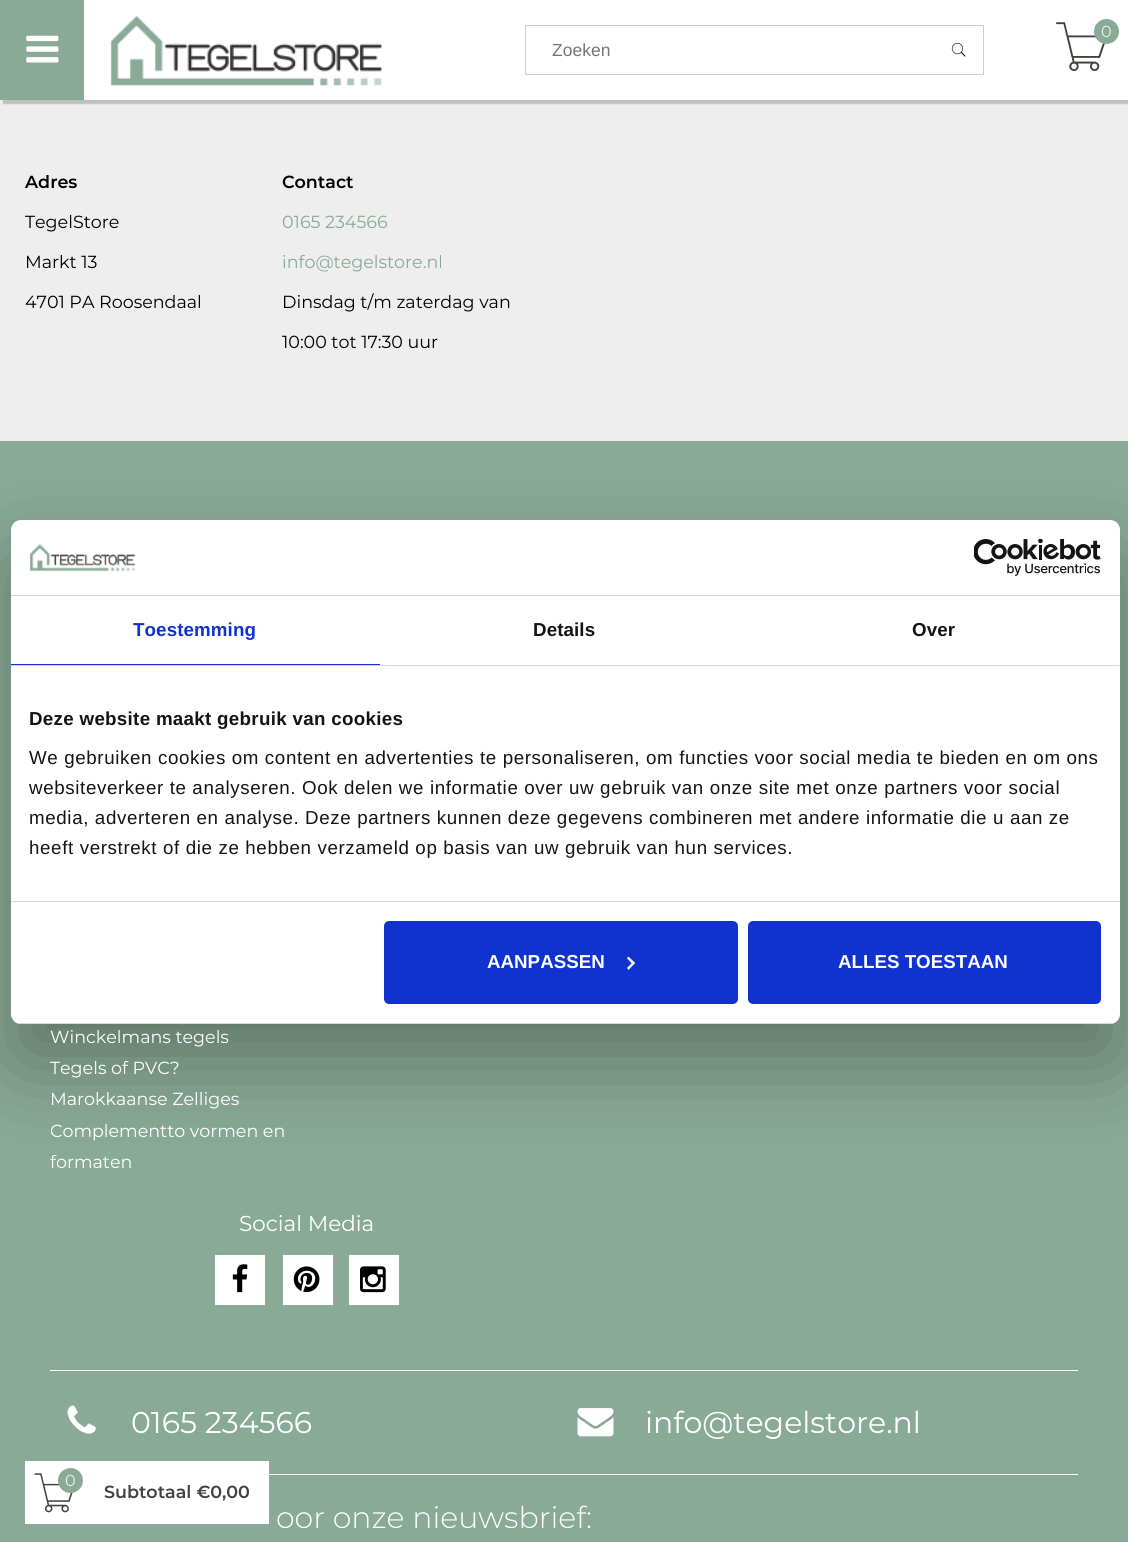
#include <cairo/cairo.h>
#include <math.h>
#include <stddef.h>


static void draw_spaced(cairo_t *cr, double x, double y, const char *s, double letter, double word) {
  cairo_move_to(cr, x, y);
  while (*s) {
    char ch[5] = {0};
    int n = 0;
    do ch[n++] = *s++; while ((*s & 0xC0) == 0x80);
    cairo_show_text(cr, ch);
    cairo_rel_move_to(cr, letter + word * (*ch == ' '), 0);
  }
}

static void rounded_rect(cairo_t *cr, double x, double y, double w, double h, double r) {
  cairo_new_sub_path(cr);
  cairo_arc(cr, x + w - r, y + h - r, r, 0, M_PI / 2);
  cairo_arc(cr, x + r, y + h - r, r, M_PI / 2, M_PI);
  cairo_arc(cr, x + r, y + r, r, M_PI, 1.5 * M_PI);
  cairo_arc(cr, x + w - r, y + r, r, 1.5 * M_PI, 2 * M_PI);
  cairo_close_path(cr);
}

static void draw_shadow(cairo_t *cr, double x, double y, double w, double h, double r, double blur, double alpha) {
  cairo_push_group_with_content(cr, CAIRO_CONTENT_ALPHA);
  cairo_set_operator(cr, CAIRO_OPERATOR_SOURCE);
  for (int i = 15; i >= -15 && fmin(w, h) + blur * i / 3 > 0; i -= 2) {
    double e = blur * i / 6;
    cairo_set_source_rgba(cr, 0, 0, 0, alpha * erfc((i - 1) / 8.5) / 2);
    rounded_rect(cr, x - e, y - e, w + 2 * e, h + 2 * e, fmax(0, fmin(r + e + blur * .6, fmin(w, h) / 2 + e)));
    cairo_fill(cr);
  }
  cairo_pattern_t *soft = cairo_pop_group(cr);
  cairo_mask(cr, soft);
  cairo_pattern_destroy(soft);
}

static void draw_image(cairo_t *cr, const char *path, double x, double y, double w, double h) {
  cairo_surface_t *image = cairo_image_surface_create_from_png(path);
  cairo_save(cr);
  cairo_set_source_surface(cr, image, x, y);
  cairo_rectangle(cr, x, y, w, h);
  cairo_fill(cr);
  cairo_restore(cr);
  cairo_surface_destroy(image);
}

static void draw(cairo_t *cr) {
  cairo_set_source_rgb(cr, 137 / 255.0, 170 / 255.0, 151 / 255.0);
  cairo_paint(cr);
  cairo_set_source_rgb(cr, 238 / 255.0, 238 / 255.0, 238 / 255.0);
  cairo_rectangle(cr, 0, 100, 1128, 341);
  cairo_fill(cr);
  cairo_set_source_rgb(cr, 50 / 255.0, 50 / 255.0, 50 / 255.0);
  draw_shadow(cr, 3, 1, 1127, 103, 0, 0.5, 0.25);
  cairo_set_source_rgb(cr, 1, 1, 1);
  cairo_rectangle(cr, 84, 0, 1044, 100);
  cairo_fill(cr);
  cairo_set_source_rgb(cr, 137 / 255.0, 170 / 255.0, 151 / 255.0);
  cairo_rectangle(cr, 2, 0, 82, 100);
  cairo_fill(cr);
  draw_image(cr, "images/1.png", 26, 35, 33, 28);
  draw_image(cr, "images/2.png", 110, 16, 273, 70);
  draw_image(cr, "images/3.png", 1056, 22, 49, 49);
  cairo_arc(cr, 1106.5, 31.5, 12.5, 0, 2 * M_PI);
  cairo_fill(cr);
  cairo_rectangle(cr, 525.5, 25.5, 458, 49);
  cairo_set_source_rgb(cr, 204 / 255.0, 204 / 255.0, 204 / 255.0);
  cairo_set_line_width(cr, 1);
  cairo_stroke(cr);
  draw_image(cr, "images/4.png", 951, 43, 15, 14);
  cairo_set_source_rgb(cr, 1, 1, 1);
  cairo_rectangle(cr, 215, 1255, 50, 50);
  cairo_fill(cr);
  draw_image(cr, "images/5.png", 232, 1264, 16, 29);
  cairo_rectangle(cr, 283, 1255, 50, 50);
  cairo_fill(cr);
  draw_image(cr, "images/6.png", 293, 1266, 27, 27);
  cairo_rectangle(cr, 349, 1255, 50, 50);
  cairo_fill(cr);
  draw_image(cr, "images/7.png", 360, 1266, 26, 27);
  cairo_rectangle(cr, 50, 1370, 1028, 1);
  cairo_fill(cr);
  draw_image(cr, "images/8.png", 67, 1405, 29, 29);
  draw_image(cr, "images/9.png", 577, 1408, 37, 29);
  cairo_rectangle(cr, 269, 1474, 809, 1);
  cairo_fill(cr);
  cairo_rectangle(cr, 25, 1461, 244, 63);
  cairo_fill(cr);
  draw_image(cr, "images/10.png", 34, 1473, 39, 40);
  cairo_set_source_rgb(cr, 137 / 255.0, 170 / 255.0, 151 / 255.0);
  cairo_arc(cr, 70.5, 1480.5, 12.5, 0, 2 * M_PI);
  cairo_fill(cr);
  cairo_set_source_rgb(cr, 0, 0, 0);
  draw_shadow(cr, 11, 560, 1109, 504, 10, 42.5, 0.3);
  cairo_set_source_rgb(cr, 1, 1, 1);
  rounded_rect(cr, 11, 520, 1109, 504, 10);
  cairo_fill(cr);
  cairo_set_source_rgb(cr, 214 / 255.0, 214 / 255.0, 214 / 255.0);
  cairo_rectangle(cr, 11, 595, 1109, 1);
  cairo_fill(cr);
  draw_image(cr, "images/11.png", 29, 544, 107, 28);
  draw_image(cr, "images/12.png", 974, 539, 127, 37);
  cairo_rectangle(cr, 11, 665, 1109, 1);
  cairo_fill(cr);
  cairo_set_source_rgb(cr, 16 / 255.0, 50 / 255.0, 207 / 255.0);
  cairo_rectangle(cr, 11, 664, 369, 1);
  cairo_fill(cr);
  cairo_set_source_rgb(cr, 214 / 255.0, 214 / 255.0, 214 / 255.0);
  cairo_rectangle(cr, 11, 901, 1109, 1);
  cairo_fill(cr);
  cairo_save(cr);
  rounded_rect(cr, 11, 520, 1109, 504, 10);
  cairo_clip(cr);
  cairo_rectangle(cr, 11, 1023, 1109, 1);
  cairo_fill(cr);
  cairo_restore(cr);
  cairo_set_source_rgb(cr, 16 / 255.0, 50 / 255.0, 207 / 255.0);
  rounded_rect(cr, 385.5, 922.5, 351, 80, 3.5);
  cairo_fill_preserve(cr);
  cairo_set_line_width(cr, 3);
  cairo_stroke(cr);
  cairo_set_source_rgb(cr, 1, 1, 1);
  cairo_new_path(cr);
  cairo_move_to(cr, 628.5, 956.5);
  cairo_line_to(cr, 635, 963);
  cairo_line_to(cr, 633.5, 965);
  cairo_line_to(cr, 627, 958.5);
  cairo_close_path(cr);
  cairo_fill(cr);
  cairo_new_path(cr);
  cairo_move_to(cr, 633.5, 961.5);
  cairo_line_to(cr, 635, 963);
  cairo_line_to(cr, 628.5, 970);
  cairo_line_to(cr, 627, 968);
  cairo_close_path(cr);
  cairo_fill(cr);
  cairo_set_source_rgb(cr, 16 / 255.0, 50 / 255.0, 207 / 255.0);
  rounded_rect(cr, 749.5, 922.5, 350, 80, 3.5);
  cairo_fill_preserve(cr);
  cairo_stroke(cr);
  cairo_select_font_face(cr, "Montserrat", CAIRO_FONT_SLANT_NORMAL, CAIRO_FONT_WEIGHT_NORMAL);
  cairo_set_font_size(cr, 16);
  cairo_set_source_rgb(cr, 238 / 255.0, 238 / 255.0, 238 / 255.0);
  cairo_move_to(cr, 1101, 37);
  cairo_show_text(cr, "0");
  cairo_select_font_face(cr, "Liberation Sans", CAIRO_FONT_SLANT_NORMAL, CAIRO_FONT_WEIGHT_NORMAL);
  cairo_set_font_size(cr, 17.5);
  cairo_set_source_rgb(cr, 117 / 255.0, 117 / 255.0, 117 / 255.0);
  cairo_move_to(cr, 552, 56);
  cairo_show_text(cr, "Zoeken");
  cairo_select_font_face(cr, "Montserrat SemiBold", CAIRO_FONT_SLANT_NORMAL, CAIRO_FONT_WEIGHT_NORMAL);
  cairo_set_source_rgb(cr, 0, 0, 0);
  cairo_move_to(cr, 25, 188);
  cairo_show_text(cr, "Adres");
  cairo_select_font_face(cr, "Montserrat", CAIRO_FONT_SLANT_NORMAL, CAIRO_FONT_WEIGHT_NORMAL);
  cairo_move_to(cr, 25, 228);
  cairo_show_text(cr, "TegelStore");
  cairo_move_to(cr, 25, 268);
  cairo_show_text(cr, "Markt 13");
  cairo_move_to(cr, 25, 308);
  cairo_show_text(cr, "4701 PA Roosendaal");
  cairo_select_font_face(cr, "Montserrat SemiBold", CAIRO_FONT_SLANT_NORMAL, CAIRO_FONT_WEIGHT_NORMAL);
  cairo_move_to(cr, 282, 188);
  cairo_show_text(cr, "Contact");
  cairo_select_font_face(cr, "Montserrat", CAIRO_FONT_SLANT_NORMAL, CAIRO_FONT_WEIGHT_NORMAL);
  cairo_set_source_rgb(cr, 137 / 255.0, 170 / 255.0, 151 / 255.0);
  cairo_move_to(cr, 282, 228);
  cairo_show_text(cr, "0165 234566");
  cairo_move_to(cr, 282, 268);
  cairo_show_text(cr, "info@tegelstore.nl");
  cairo_set_source_rgb(cr, 0, 0, 0);
  cairo_move_to(cr, 282, 308);
  cairo_show_text(cr, "Dinsdag t/m zaterdag van");
  cairo_move_to(cr, 282, 348);
  cairo_show_text(cr, "10:00 tot 17:30 uur");
  cairo_set_source_rgb(cr, 1, 1, 1);
  cairo_move_to(cr, 50, 1043);
  cairo_show_text(cr, "Winckelmans tegels");
  cairo_move_to(cr, 50, 1074);
  cairo_show_text(cr, "Tegels of PVC?");
  cairo_move_to(cr, 50, 1105);
  cairo_show_text(cr, "Marokkaanse Zelliges");
  cairo_move_to(cr, 50, 1137);
  cairo_show_text(cr, "Complementto vormen en");
  cairo_move_to(cr, 50, 1168);
  cairo_show_text(cr, "formaten");
  cairo_set_font_size(cr, 21.5);
  cairo_move_to(cr, 239, 1231);
  cairo_show_text(cr, "Social Media");
  cairo_set_font_size(cr, 30);
  cairo_move_to(cr, 131, 1433);
  cairo_show_text(cr, "0165 234566");
  cairo_move_to(cr, 645, 1433);
  cairo_show_text(cr, "info@tegelstore.nl");
  cairo_select_font_face(cr, "Montserrat Light", CAIRO_FONT_SLANT_NORMAL, CAIRO_FONT_WEIGHT_NORMAL);
  cairo_move_to(cr, 276, 1528);
  cairo_show_text(cr, "oor onze nieuwsbrief:");
  cairo_select_font_face(cr, "Montserrat", CAIRO_FONT_SLANT_NORMAL, CAIRO_FONT_WEIGHT_NORMAL);
  cairo_set_font_size(cr, 16);
  cairo_set_source_rgb(cr, 238 / 255.0, 238 / 255.0, 238 / 255.0);
  cairo_move_to(cr, 65, 1486);
  cairo_show_text(cr, "0");
  cairo_select_font_face(cr, "Montserrat SemiBold", CAIRO_FONT_SLANT_NORMAL, CAIRO_FONT_WEIGHT_NORMAL);
  cairo_set_font_size(cr, 17.5);
  cairo_set_source_rgb(cr, 72 / 255.0, 63 / 255.0, 63 / 255.0);
  cairo_move_to(cr, 104, 1498);
  cairo_show_text(cr, "Subtotaal €0,00");
  cairo_select_font_face(cr, "Liberation Sans", CAIRO_FONT_SLANT_NORMAL, CAIRO_FONT_WEIGHT_BOLD);
  cairo_set_font_size(cr, 18.75);
  cairo_set_source_rgb(cr, 16 / 255.0, 50 / 255.0, 207 / 255.0);
  draw_spaced(cr, 133, 636, "Toestemming", 0.1, 0);
  cairo_set_source_rgb(cr, 20 / 255.0, 20 / 255.0, 20 / 255.0);
  draw_spaced(cr, 533, 636, "Details", 0.1, 0);
  draw_spaced(cr, 912, 636, "Over", 0.1, 0);
  draw_spaced(cr, 29, 725, "Deze website maakt gebruik van cookies", 0.3, 0);
  cairo_select_font_face(cr, "Liberation Sans", CAIRO_FONT_SLANT_NORMAL, CAIRO_FONT_WEIGHT_NORMAL);
  draw_spaced(cr, 29, 764, "We gebruiken cookies om content en advertenties te personaliseren, om functies voor social media te bieden en om ons", 0.62, 0);
  draw_spaced(cr, 29, 794, "websiteverkeer te analyseren. Ook delen we informatie over uw gebruik van onze site met onze partners voor social", 0.62, 0);
  draw_spaced(cr, 29, 824, "media, adverteren en analyse. Deze partners kunnen deze gegevens combineren met andere informatie die u aan ze", 0.62, 0);
  draw_spaced(cr, 29, 854, "heeft verstrekt of die ze hebben verzameld op basis van uw gebruik van hun services.", 0.62, 0);
  cairo_select_font_face(cr, "Liberation Sans", CAIRO_FONT_SLANT_NORMAL, CAIRO_FONT_WEIGHT_BOLD);
  cairo_set_source_rgb(cr, 1, 1, 1);
  cairo_move_to(cr, 487, 968);
  cairo_show_text(cr, "AANPASSEN");
  cairo_move_to(cr, 838, 968);
  cairo_show_text(cr, "ALLES TOESTAAN");
}

int main(void) {
  cairo_surface_t *surface = cairo_image_surface_create(CAIRO_FORMAT_RGB24, 1128, 1542);
  cairo_t *cr = cairo_create(surface);
  cairo_font_options_t *options = cairo_font_options_create();
  cairo_font_options_set_hint_metrics(options, CAIRO_HINT_METRICS_OFF);
  cairo_font_options_set_hint_style(options, CAIRO_HINT_STYLE_NONE);
  cairo_set_font_options(cr, options);
  cairo_set_miter_limit(cr, 4);
  draw(cr);
  cairo_surface_write_to_png(surface, "out.png");
  cairo_font_options_destroy(options);
  cairo_destroy(cr);
  cairo_surface_destroy(surface);
  return 0;
}
